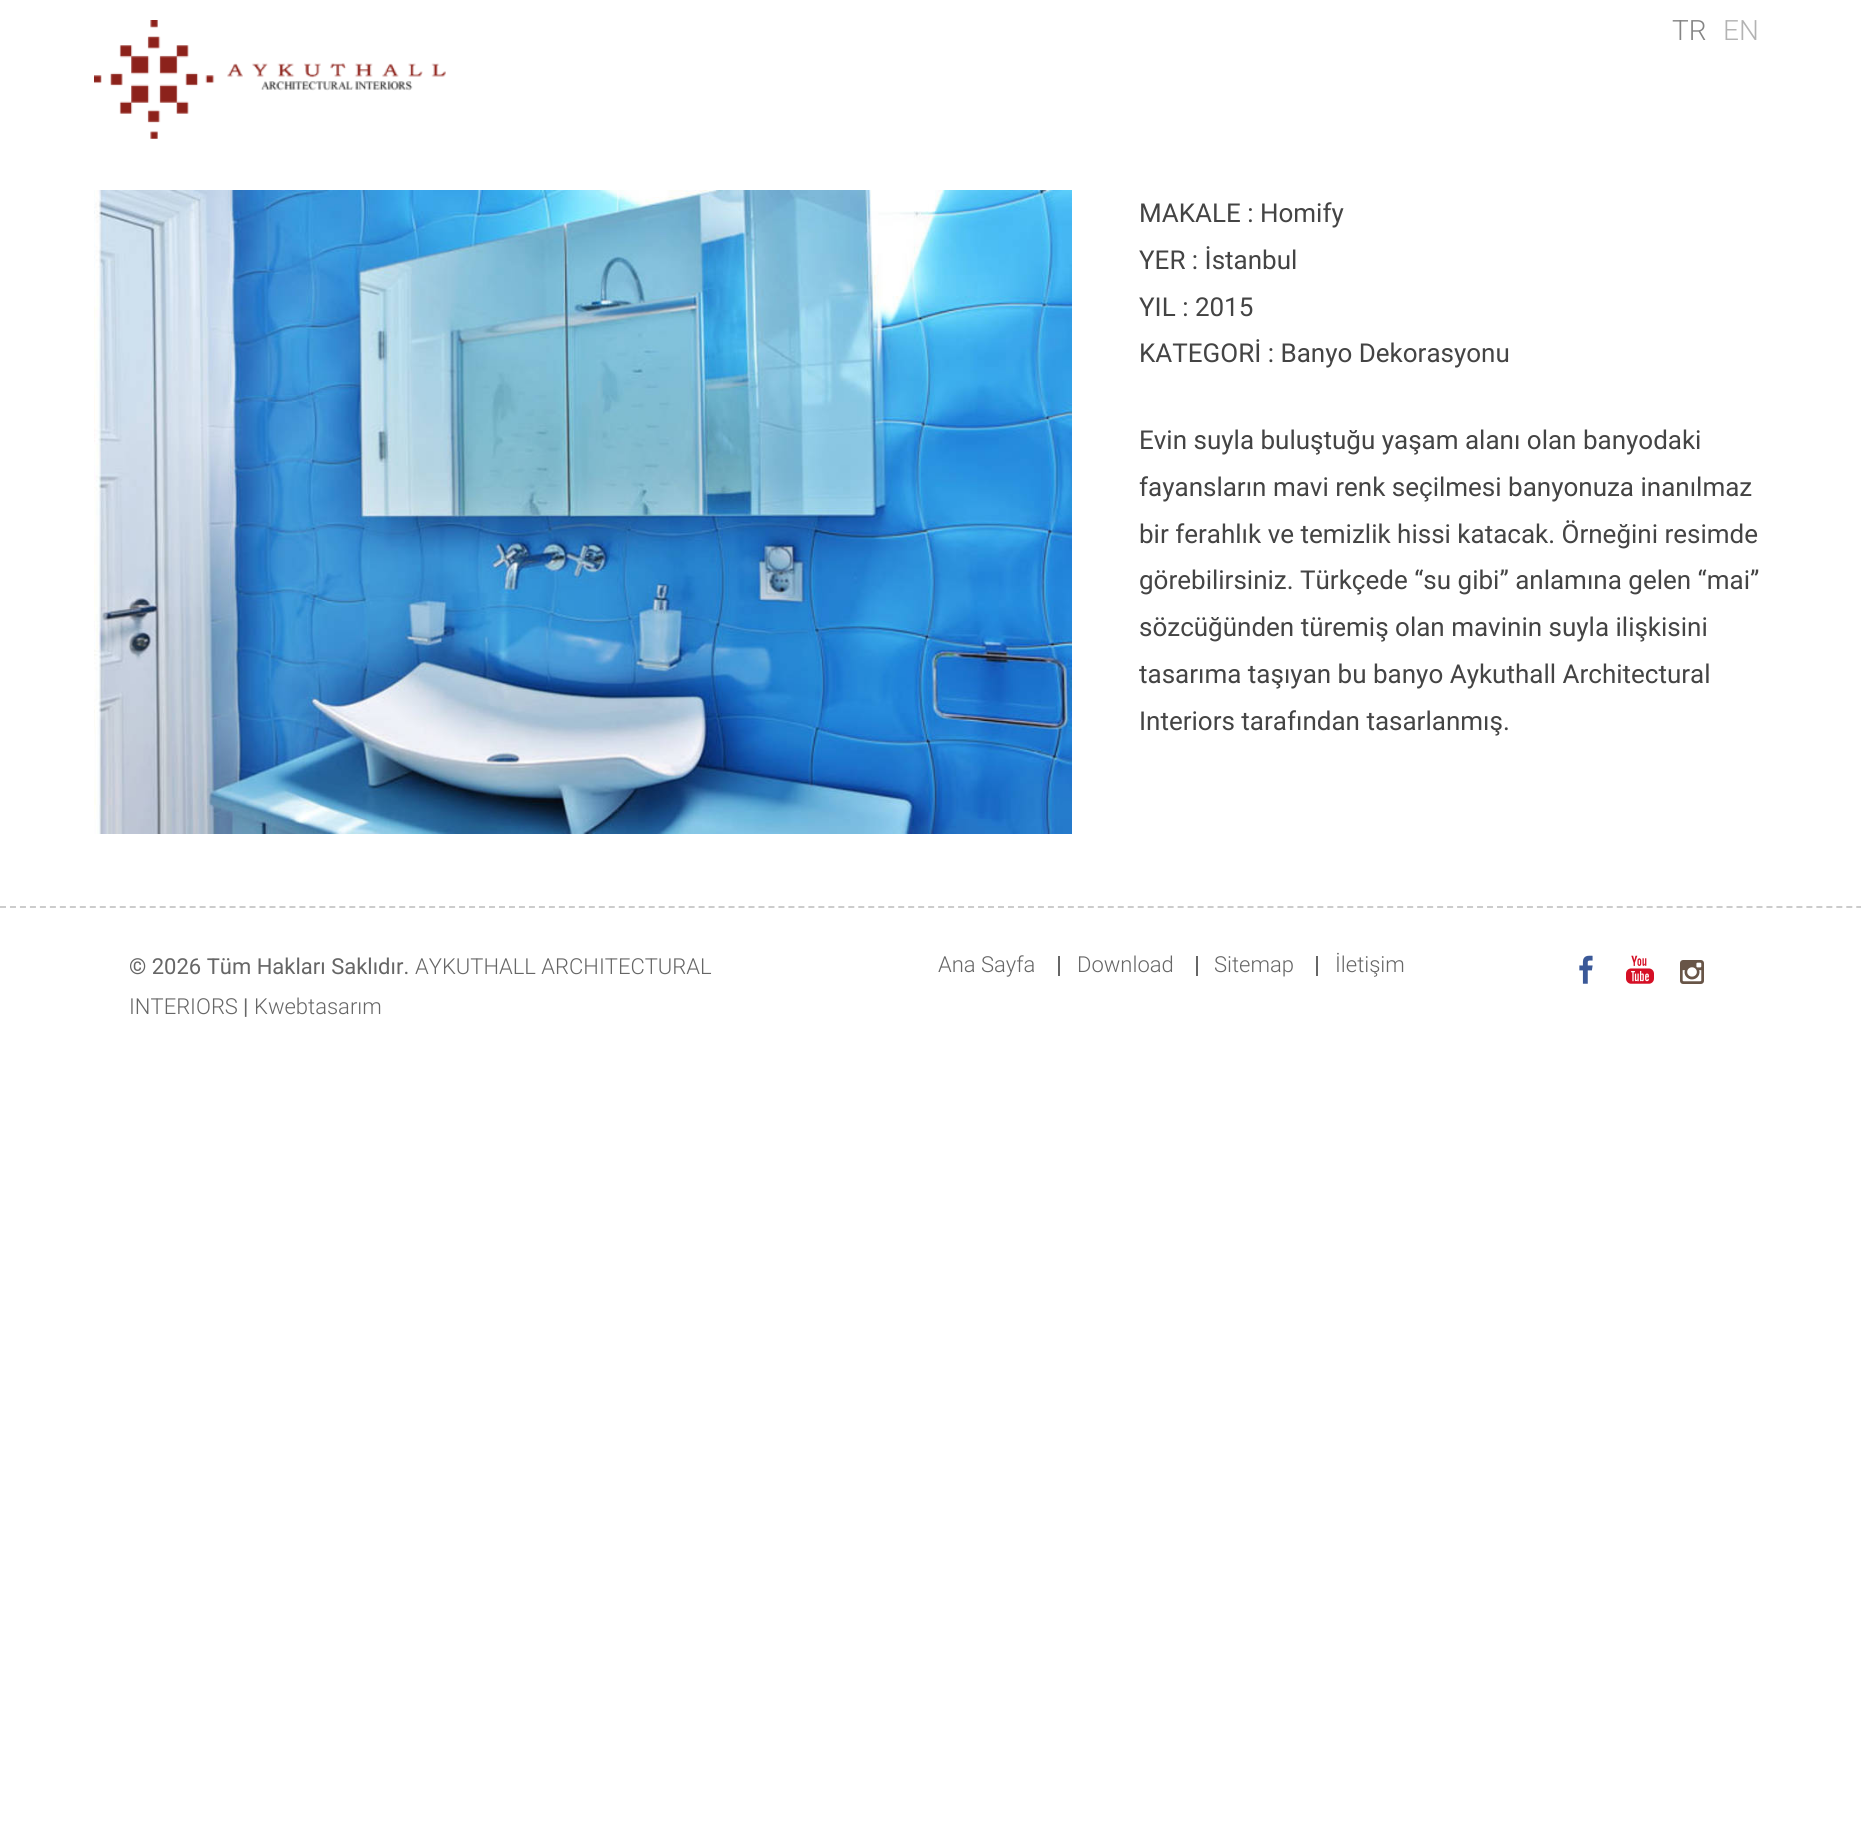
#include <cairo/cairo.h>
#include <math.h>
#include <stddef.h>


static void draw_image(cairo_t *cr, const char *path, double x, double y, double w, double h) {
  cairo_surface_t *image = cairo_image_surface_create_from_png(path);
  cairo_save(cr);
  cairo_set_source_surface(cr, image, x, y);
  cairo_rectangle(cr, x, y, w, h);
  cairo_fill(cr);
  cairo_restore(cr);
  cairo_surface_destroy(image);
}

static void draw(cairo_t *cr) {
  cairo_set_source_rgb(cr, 1, 1, 1);
  cairo_paint(cr);
  draw_image(cr, "images/1.png", 94, 20, 352, 119);
  draw_image(cr, "images/2.png", 94, 190, 978, 644);
  cairo_new_path(cr);
  cairo_move_to(cr, 0, 907);
  cairo_line_to(cr, 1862, 907);
  cairo_set_source_rgb(cr, 204 / 255.0, 204 / 255.0, 204 / 255.0);
  cairo_set_dash(cr, (double[]){6, 3.98}, 2, 0);
  cairo_stroke(cr);
  cairo_set_source_rgb(cr, 102 / 255.0, 102 / 255.0, 102 / 255.0);
  cairo_rectangle(cr, 1058, 956, 2, 20);
  cairo_fill(cr);
  cairo_rectangle(cr, 1196, 956, 2, 20);
  cairo_fill(cr);
  cairo_rectangle(cr, 1316, 956, 2, 20);
  cairo_fill(cr);
  draw_image(cr, "images/3.png", 1579, 955, 14, 29);
  draw_image(cr, "images/4.png", 1626, 955, 28, 29);
  draw_image(cr, "images/5.png", 1680, 960, 24, 24);
  cairo_select_font_face(cr, "Roboto Light", CAIRO_FONT_SLANT_NORMAL, CAIRO_FONT_WEIGHT_NORMAL);
  cairo_set_font_size(cr, 28);
  cairo_set_source_rgb(cr, 133 / 255.0, 133 / 255.0, 133 / 255.0);
  cairo_move_to(cr, 1672, 40);
  cairo_show_text(cr, "TR");
  cairo_set_source_rgb(cr, 179 / 255.0, 179 / 255.0, 179 / 255.0);
  cairo_move_to(cr, 1723, 40);
  cairo_show_text(cr, "EN");
  cairo_select_font_face(cr, "Roboto", CAIRO_FONT_SLANT_NORMAL, CAIRO_FONT_WEIGHT_NORMAL);
  cairo_set_font_size(cr, 26);
  cairo_set_source_rgb(cr, 68 / 255.0, 68 / 255.0, 68 / 255.0);
  cairo_move_to(cr, 1139, 222);
  cairo_show_text(cr, "MAKALE : Homify");
  cairo_move_to(cr, 1139, 269);
  cairo_show_text(cr, "YER : İstanbul");
  cairo_move_to(cr, 1139, 316);
  cairo_show_text(cr, "YIL : 2015");
  cairo_move_to(cr, 1139, 362);
  cairo_show_text(cr, "KATEGORİ : Banyo Dekorasyonu");
  cairo_move_to(cr, 1139, 449);
  cairo_show_text(cr, "Evin suyla buluştuğu yaşam alanı olan banyodaki");
  cairo_move_to(cr, 1139, 496);
  cairo_show_text(cr, "fayansların mavi renk seçilmesi banyonuza inanılmaz");
  cairo_move_to(cr, 1139, 543);
  cairo_show_text(cr, "bir ferahlık ve temizlik hissi katacak. Örneğini resimde");
  cairo_move_to(cr, 1139, 589);
  cairo_show_text(cr, "görebilirsiniz. Türkçede “su gibi” anlamına gelen “mai”");
  cairo_move_to(cr, 1139, 636);
  cairo_show_text(cr, "sözcüğünden türemiş olan mavinin suyla ilişkisini");
  cairo_move_to(cr, 1139, 683);
  cairo_show_text(cr, "tasarıma taşıyan bu banyo Aykuthall Architectural");
  cairo_move_to(cr, 1139, 730);
  cairo_show_text(cr, "Interiors tarafından tasarlanmış.");
  cairo_set_font_size(cr, 22);
  cairo_set_source_rgb(cr, 102 / 255.0, 102 / 255.0, 102 / 255.0);
  cairo_move_to(cr, 129, 974);
  cairo_show_text(cr, "© 2026 Tüm Hakları Saklıdır.");
  cairo_select_font_face(cr, "Roboto Light", CAIRO_FONT_SLANT_NORMAL, CAIRO_FONT_WEIGHT_NORMAL);
  cairo_move_to(cr, 415, 974);
  cairo_show_text(cr, "AYKUTHALL ARCHITECTURAL");
  cairo_move_to(cr, 129, 1014);
  cairo_show_text(cr, "INTERIORS");
  cairo_select_font_face(cr, "Roboto", CAIRO_FONT_SLANT_NORMAL, CAIRO_FONT_WEIGHT_NORMAL);
  cairo_move_to(cr, 243, 1014);
  cairo_show_text(cr, "|");
  cairo_select_font_face(cr, "Roboto Light", CAIRO_FONT_SLANT_NORMAL, CAIRO_FONT_WEIGHT_NORMAL);
  cairo_move_to(cr, 254, 1014);
  cairo_show_text(cr, "Kwebtasarım");
  cairo_move_to(cr, 938, 972);
  cairo_show_text(cr, "Ana Sayfa");
  cairo_move_to(cr, 1077, 972);
  cairo_show_text(cr, "Download");
  cairo_move_to(cr, 1214, 972);
  cairo_show_text(cr, "Sitemap");
  cairo_move_to(cr, 1335, 972);
  cairo_show_text(cr, "İletişim");
}

int main(void) {
  cairo_surface_t *surface = cairo_image_surface_create(CAIRO_FORMAT_RGB24, 1861, 1836);
  cairo_t *cr = cairo_create(surface);
  cairo_font_options_t *options = cairo_font_options_create();
  cairo_font_options_set_hint_metrics(options, CAIRO_HINT_METRICS_OFF);
  cairo_font_options_set_hint_style(options, CAIRO_HINT_STYLE_NONE);
  cairo_set_font_options(cr, options);
  cairo_set_miter_limit(cr, 4);
  draw(cr);
  cairo_surface_write_to_png(surface, "out.png");
  cairo_font_options_destroy(options);
  cairo_destroy(cr);
  cairo_surface_destroy(surface);
  return 0;
}
